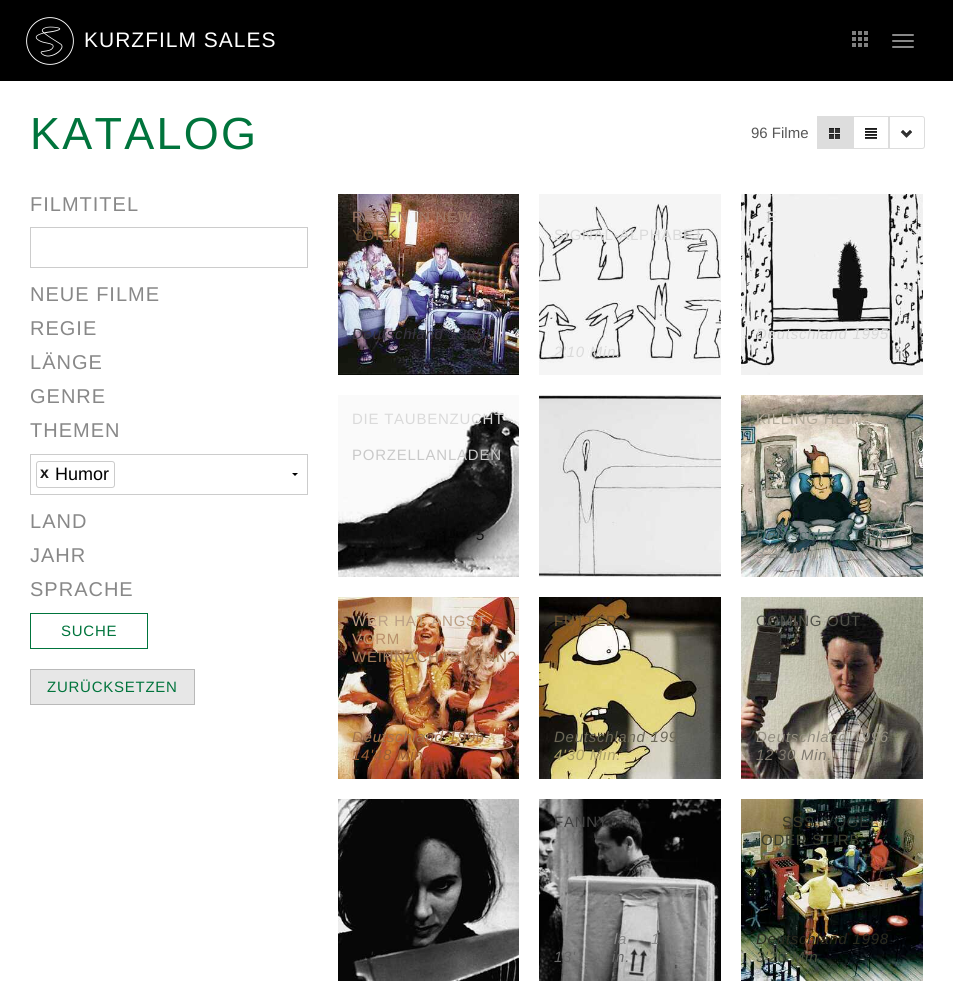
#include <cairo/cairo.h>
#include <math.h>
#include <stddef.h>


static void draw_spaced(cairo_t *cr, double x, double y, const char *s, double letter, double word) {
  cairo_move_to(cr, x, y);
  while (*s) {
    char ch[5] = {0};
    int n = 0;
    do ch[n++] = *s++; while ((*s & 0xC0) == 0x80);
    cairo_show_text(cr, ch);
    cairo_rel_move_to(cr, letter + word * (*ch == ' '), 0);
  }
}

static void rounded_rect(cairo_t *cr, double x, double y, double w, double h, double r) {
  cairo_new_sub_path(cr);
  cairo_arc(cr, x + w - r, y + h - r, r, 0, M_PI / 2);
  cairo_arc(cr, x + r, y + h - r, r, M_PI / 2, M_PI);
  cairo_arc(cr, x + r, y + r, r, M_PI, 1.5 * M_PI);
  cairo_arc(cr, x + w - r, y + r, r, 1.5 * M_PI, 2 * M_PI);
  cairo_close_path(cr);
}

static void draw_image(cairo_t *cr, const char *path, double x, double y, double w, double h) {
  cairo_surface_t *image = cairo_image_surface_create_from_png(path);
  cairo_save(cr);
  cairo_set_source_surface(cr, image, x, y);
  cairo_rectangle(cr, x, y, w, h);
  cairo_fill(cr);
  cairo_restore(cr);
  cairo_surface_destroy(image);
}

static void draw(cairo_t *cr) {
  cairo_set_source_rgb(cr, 1, 1, 1);
  cairo_paint(cr);
  cairo_set_source_rgb(cr, 0, 0, 0);
  cairo_rectangle(cr, 0, 0, 953, 81);
  cairo_fill(cr);
  draw_image(cr, "images/1.png", 26, 17, 48, 48);
  draw_image(cr, "images/2.png", 852, 31, 16, 16);
  cairo_set_source_rgb(cr, 136 / 255.0, 136 / 255.0, 136 / 255.0);
  rounded_rect(cr, 892, 34, 22, 2, 1);
  cairo_fill(cr);
  rounded_rect(cr, 892, 40, 22, 2, 1);
  cairo_fill(cr);
  rounded_rect(cr, 892, 46, 22, 2, 1);
  cairo_fill(cr);
  cairo_set_source_rgb(cr, 221 / 255.0, 221 / 255.0, 221 / 255.0);
  cairo_rectangle(cr, 817, 116, 36, 33);
  cairo_fill(cr);
  draw_image(cr, "images/3.png", 829, 128, 11, 12);
  cairo_rectangle(cr, 853.5, 116.5, 35, 32);
  cairo_set_line_width(cr, 1);
  cairo_stroke(cr);
  draw_image(cr, "images/4.png", 865, 128, 12, 11);
  cairo_new_path(cr);
  cairo_move_to(cr, 889.5, 116.5);
  cairo_line_to(cr, 922, 116.5);
  cairo_curve_to(cr, 923.5, 116.5, 924.5, 117.5, 924.5, 119);
  cairo_line_to(cr, 924.5, 146);
  cairo_curve_to(cr, 924.5, 147.5, 923.5, 148.5, 922, 148.5);
  cairo_line_to(cr, 889.5, 148.5);
  cairo_close_path(cr);
  cairo_stroke(cr);
  draw_image(cr, "images/5.png", 900, 130, 12, 8);
  cairo_rectangle(cr, 30.5, 227.5, 277, 40);
  cairo_set_source_rgb(cr, 204 / 255.0, 204 / 255.0, 204 / 255.0);
  cairo_stroke(cr);
  cairo_set_source_rgb(cr, 0, 0, 0);
  cairo_new_path(cr);
  cairo_move_to(cr, 298, 473);
  cairo_line_to(cr, 295, 476);
  cairo_line_to(cr, 292, 473);
  cairo_close_path(cr);
  cairo_fill(cr);
  cairo_rectangle(cr, 30.5, 454.5, 277, 40);
  cairo_set_source_rgb(cr, 204 / 255.0, 204 / 255.0, 204 / 255.0);
  cairo_stroke(cr);
  rounded_rect(cr, 36.5, 461.5, 78, 26, 2.5);
  cairo_stroke(cr);
  cairo_rectangle(cr, 30.5, 613.5, 117, 35);
  cairo_set_source_rgb(cr, 0, 116 / 255.0, 60 / 255.0);
  cairo_stroke(cr);
  cairo_set_source_rgb(cr, 231 / 255.0, 231 / 255.0, 231 / 255.0);
  cairo_rectangle(cr, 30.5, 669.5, 164, 35);
  cairo_fill_preserve(cr);
  cairo_set_source_rgb(cr, 185 / 255.0, 185 / 255.0, 185 / 255.0);
  cairo_stroke(cr);
  draw_image(cr, "images/6.png", 338, 194, 181, 181);
  draw_image(cr, "images/7.png", 539, 194, 182, 181);
  draw_image(cr, "images/8.png", 741, 194, 182, 181);
  draw_image(cr, "images/9.png", 338, 395, 181, 182);
  draw_image(cr, "images/10.png", 539, 395, 182, 182);
  draw_image(cr, "images/11.png", 741, 395, 182, 182);
  draw_image(cr, "images/12.png", 338, 597, 181, 182);
  draw_image(cr, "images/13.png", 539, 597, 182, 182);
  draw_image(cr, "images/14.png", 741, 597, 182, 182);
  draw_image(cr, "images/15.png", 338, 799, 181, 182);
  draw_image(cr, "images/16.png", 539, 799, 182, 182);
  draw_image(cr, "images/17.png", 741, 799, 182, 182);
  cairo_select_font_face(cr, "Liberation Sans", CAIRO_FONT_SLANT_NORMAL, CAIRO_FONT_WEIGHT_NORMAL);
  cairo_set_font_size(cr, 21);
  cairo_set_source_rgb(cr, 1, 1, 1);
  draw_spaced(cr, 84, 47, "KURZFILM SALES", 1, 0);
  cairo_set_font_size(cr, 45);
  cairo_set_source_rgb(cr, 0, 116 / 255.0, 60 / 255.0);
  draw_spaced(cr, 30, 149, "KATALOG", 2.25, 0);
  cairo_set_font_size(cr, 15);
  cairo_set_source_rgb(cr, 87 / 255.0, 87 / 255.0, 87 / 255.0);
  cairo_move_to(cr, 751, 138);
  cairo_show_text(cr, "96 Filme");
  cairo_set_font_size(cr, 20);
  cairo_set_source_rgb(cr, 136 / 255.0, 136 / 255.0, 136 / 255.0);
  draw_spaced(cr, 30, 211, "FILMTITEL", 1, 0);
  draw_spaced(cr, 30, 301, "NEUE FILME", 1, 0);
  draw_spaced(cr, 30, 335, "REGIE", 1, 0);
  draw_spaced(cr, 30, 369, "LÄNGE", 1, 0);
  draw_spaced(cr, 30, 403, "GENRE", 1, 0);
  draw_spaced(cr, 30, 437, "THEMEN", 1, 0);
  cairo_select_font_face(cr, "Liberation Sans", CAIRO_FONT_SLANT_NORMAL, CAIRO_FONT_WEIGHT_BOLD);
  cairo_set_font_size(cr, 16);
  cairo_set_source_rgb(cr, 26 / 255.0, 26 / 255.0, 26 / 255.0);
  cairo_move_to(cr, 40, 478);
  cairo_show_text(cr, "x");
  cairo_select_font_face(cr, "Liberation Sans", CAIRO_FONT_SLANT_NORMAL, CAIRO_FONT_WEIGHT_NORMAL);
  cairo_set_font_size(cr, 18);
  cairo_set_source_rgb(cr, 0, 0, 0);
  cairo_move_to(cr, 55, 480);
  cairo_show_text(cr, "Humor");
  cairo_set_font_size(cr, 20);
  cairo_set_source_rgb(cr, 136 / 255.0, 136 / 255.0, 136 / 255.0);
  draw_spaced(cr, 30, 528, "LAND", 1, 0);
  draw_spaced(cr, 30, 562, "JAHR", 1, 0);
  draw_spaced(cr, 30, 596, "SPRACHE", 1, 0);
  cairo_set_font_size(cr, 15);
  cairo_set_source_rgb(cr, 0, 116 / 255.0, 60 / 255.0);
  draw_spaced(cr, 61, 636, "SUCHE", 0.75, 0);
  draw_spaced(cr, 47, 692, "ZURÜCKSETZEN", 0.75, 0);
  cairo_set_source_rgb(cr, 158 / 255.0, 122 / 255.0, 104 / 255.0);
  draw_spaced(cr, 352, 222, "REGEN IN NEW", 0.75, 0);
  cairo_set_source_rgb(cr, 119 / 255.0, 90 / 255.0, 59 / 255.0);
  draw_spaced(cr, 352, 240, "YORK", 0.75, 0);
  cairo_select_font_face(cr, "Liberation Sans", CAIRO_FONT_SLANT_ITALIC, CAIRO_FONT_WEIGHT_NORMAL);
  cairo_set_source_rgb(cr, 56 / 255.0, 53 / 255.0, 64 / 255.0);
  draw_spaced(cr, 352, 339, "Deutschland 1995", 0.75, 0);
  cairo_set_source_rgb(cr, 37 / 255.0, 36 / 255.0, 40 / 255.0);
  draw_spaced(cr, 361, 357, "'", 0.75, 0);
  cairo_select_font_face(cr, "Liberation Sans", CAIRO_FONT_SLANT_NORMAL, CAIRO_FONT_WEIGHT_NORMAL);
  cairo_set_source_rgb(cr, 218 / 255.0, 218 / 255.0, 218 / 255.0);
  draw_spaced(cr, 554, 240, "SIGNAL-ALPHABET", 0.75, 0);
  cairo_select_font_face(cr, "Liberation Sans", CAIRO_FONT_SLANT_ITALIC, CAIRO_FONT_WEIGHT_NORMAL);
  draw_spaced(cr, 554, 357, "2'10 Min.", 0.75, 0);
  cairo_select_font_face(cr, "Liberation Sans", CAIRO_FONT_SLANT_NORMAL, CAIRO_FONT_WEIGHT_NORMAL);
  cairo_set_source_rgb(cr, 228 / 255.0, 228 / 255.0, 228 / 255.0);
  draw_spaced(cr, 767, 222, "E", 0.75, 0);
  cairo_select_font_face(cr, "Liberation Sans", CAIRO_FONT_SLANT_ITALIC, CAIRO_FONT_WEIGHT_NORMAL);
  cairo_set_source_rgb(cr, 218 / 255.0, 218 / 255.0, 218 / 255.0);
  draw_spaced(cr, 756, 339, "Deutschland 1995", 0.75, 0);
  cairo_select_font_face(cr, "Liberation Sans", CAIRO_FONT_SLANT_NORMAL, CAIRO_FONT_WEIGHT_NORMAL);
  draw_spaced(cr, 352, 424, "DIE TAUBENZUCHT", 0.75, 0);
  cairo_set_source_rgb(cr, 201 / 255.0, 201 / 255.0, 201 / 255.0);
  draw_spaced(cr, 352, 460, "PORZELLANLADEN", 0.75, 0);
  cairo_select_font_face(cr, "Liberation Sans", CAIRO_FONT_SLANT_ITALIC, CAIRO_FONT_WEIGHT_NORMAL);
  cairo_set_source_rgb(cr, 18 / 255.0, 18 / 255.0, 18 / 255.0);
  draw_spaced(cr, 476, 540, "5", 0.75, 0);
  cairo_select_font_face(cr, "Liberation Sans", CAIRO_FONT_SLANT_NORMAL, CAIRO_FONT_WEIGHT_NORMAL);
  cairo_set_source_rgb(cr, 177 / 255.0, 169 / 255.0, 154 / 255.0);
  draw_spaced(cr, 756, 424, "KILLING HEINZ", 0.75, 0);
  cairo_select_font_face(cr, "Liberation Sans", CAIRO_FONT_SLANT_ITALIC, CAIRO_FONT_WEIGHT_NORMAL);
  cairo_set_source_rgb(cr, 92 / 255.0, 113 / 255.0, 111 / 255.0);
  draw_spaced(cr, 756, 540, "Deutschland 1996", 0.75, 0);
  cairo_set_source_rgb(cr, 147 / 255.0, 149 / 255.0, 144 / 255.0);
  draw_spaced(cr, 756, 558, "3'20 Min.", 0.75, 0);
  cairo_select_font_face(cr, "Liberation Sans", CAIRO_FONT_SLANT_NORMAL, CAIRO_FONT_WEIGHT_NORMAL);
  cairo_set_source_rgb(cr, 187 / 255.0, 159 / 255.0, 133 / 255.0);
  draw_spaced(cr, 352, 626, "WER HAT ANGST", 0.75, 0);
  cairo_set_source_rgb(cr, 184 / 255.0, 144 / 255.0, 107 / 255.0);
  draw_spaced(cr, 352, 644, "VORM", 0.75, 0);
  cairo_set_source_rgb(cr, 161 / 255.0, 122 / 255.0, 90 / 255.0);
  draw_spaced(cr, 352, 662, "WEIHNACHTSMANN?", 0.75, 0);
  cairo_select_font_face(cr, "Liberation Sans", CAIRO_FONT_SLANT_ITALIC, CAIRO_FONT_WEIGHT_NORMAL);
  cairo_set_source_rgb(cr, 163 / 255.0, 117 / 255.0, 80 / 255.0);
  draw_spaced(cr, 352, 742, "Deutschland 1996", 0.75, 0);
  cairo_set_source_rgb(cr, 154 / 255.0, 94 / 255.0, 54 / 255.0);
  draw_spaced(cr, 352, 760, "14'48 Min.", 0.75, 0);
  cairo_select_font_face(cr, "Liberation Sans", CAIRO_FONT_SLANT_NORMAL, CAIRO_FONT_WEIGHT_NORMAL);
  cairo_set_source_rgb(cr, 113 / 255.0, 86 / 255.0, 49 / 255.0);
  draw_spaced(cr, 554, 626, "FUTTER", 0.75, 0);
  cairo_select_font_face(cr, "Liberation Sans", CAIRO_FONT_SLANT_ITALIC, CAIRO_FONT_WEIGHT_NORMAL);
  cairo_set_source_rgb(cr, 108 / 255.0, 104 / 255.0, 88 / 255.0);
  draw_spaced(cr, 554, 742, "Deutschland 199", 0.75, 0);
  cairo_set_source_rgb(cr, 171 / 255.0, 160 / 255.0, 102 / 255.0);
  draw_spaced(cr, 554, 760, "4'30 Min.", 0.75, 0);
  cairo_select_font_face(cr, "Liberation Sans", CAIRO_FONT_SLANT_NORMAL, CAIRO_FONT_WEIGHT_NORMAL);
  cairo_set_source_rgb(cr, 82 / 255.0, 83 / 255.0, 75 / 255.0);
  draw_spaced(cr, 756, 626, "COMING OUT", 0.75, 0);
  cairo_select_font_face(cr, "Liberation Sans", CAIRO_FONT_SLANT_ITALIC, CAIRO_FONT_WEIGHT_NORMAL);
  cairo_set_source_rgb(cr, 146 / 255.0, 141 / 255.0, 128 / 255.0);
  draw_spaced(cr, 756, 742, "Deutschland 1996", 0.75, 0);
  cairo_set_source_rgb(cr, 127 / 255.0, 121 / 255.0, 111 / 255.0);
  draw_spaced(cr, 756, 760, "12'30 Min.", 0.75, 0);
  cairo_set_source_rgb(cr, 44 / 255.0, 44 / 255.0, 44 / 255.0);
  draw_spaced(cr, 370, 962, "'", 0.75, 0);
  cairo_select_font_face(cr, "Liberation Sans", CAIRO_FONT_SLANT_NORMAL, CAIRO_FONT_WEIGHT_NORMAL);
  cairo_set_source_rgb(cr, 67 / 255.0, 67 / 255.0, 67 / 255.0);
  draw_spaced(cr, 554, 827, "FANNY", 0.75, 0);
  cairo_select_font_face(cr, "Liberation Sans", CAIRO_FONT_SLANT_ITALIC, CAIRO_FONT_WEIGHT_NORMAL);
  cairo_set_source_rgb(cr, 136 / 255.0, 136 / 255.0, 136 / 255.0);
  draw_spaced(cr, 614, 944, "la", 0.75, 0);
  draw_spaced(cr, 651, 944, "1", 0.75, 0);
  cairo_set_source_rgb(cr, 103 / 255.0, 103 / 255.0, 103 / 255.0);
  draw_spaced(cr, 554, 962, "13'", 0.75, 0);
  draw_spaced(cr, 612, 962, "in.", 0.75, 0);
  cairo_select_font_face(cr, "Liberation Sans", CAIRO_FONT_SLANT_NORMAL, CAIRO_FONT_WEIGHT_NORMAL);
  cairo_set_source_rgb(cr, 60 / 255.0, 58 / 255.0, 39 / 255.0);
  draw_spaced(cr, 782, 827, "SS", 0.75, 0);
  cairo_set_source_rgb(cr, 42 / 255.0, 50 / 255.0, 44 / 255.0);
  draw_spaced(cr, 804, 827, "S, VOGEL", 0.75, -1);
  cairo_set_source_rgb(cr, 58 / 255.0, 60 / 255.0, 45 / 255.0);
  draw_spaced(cr, 761, 845, "ODER STIRB", 0.75, 0);
  cairo_select_font_face(cr, "Liberation Sans", CAIRO_FONT_SLANT_ITALIC, CAIRO_FONT_WEIGHT_NORMAL);
  cairo_set_source_rgb(cr, 43 / 255.0, 43 / 255.0, 31 / 255.0);
  draw_spaced(cr, 756, 944, "Deutschland 1998", 0.75, 0);
  cairo_set_source_rgb(cr, 69 / 255.0, 79 / 255.0, 59 / 255.0);
  draw_spaced(cr, 756, 962, "3'20 Min.", 0.75, 0);
}

int main(void) {
  cairo_surface_t *surface = cairo_image_surface_create(CAIRO_FORMAT_RGB24, 953, 1006);
  cairo_t *cr = cairo_create(surface);
  cairo_font_options_t *options = cairo_font_options_create();
  cairo_font_options_set_hint_metrics(options, CAIRO_HINT_METRICS_OFF);
  cairo_font_options_set_hint_style(options, CAIRO_HINT_STYLE_NONE);
  cairo_set_font_options(cr, options);
  cairo_set_miter_limit(cr, 4);
  draw(cr);
  cairo_surface_write_to_png(surface, "out.png");
  cairo_font_options_destroy(options);
  cairo_destroy(cr);
  cairo_surface_destroy(surface);
  return 0;
}
